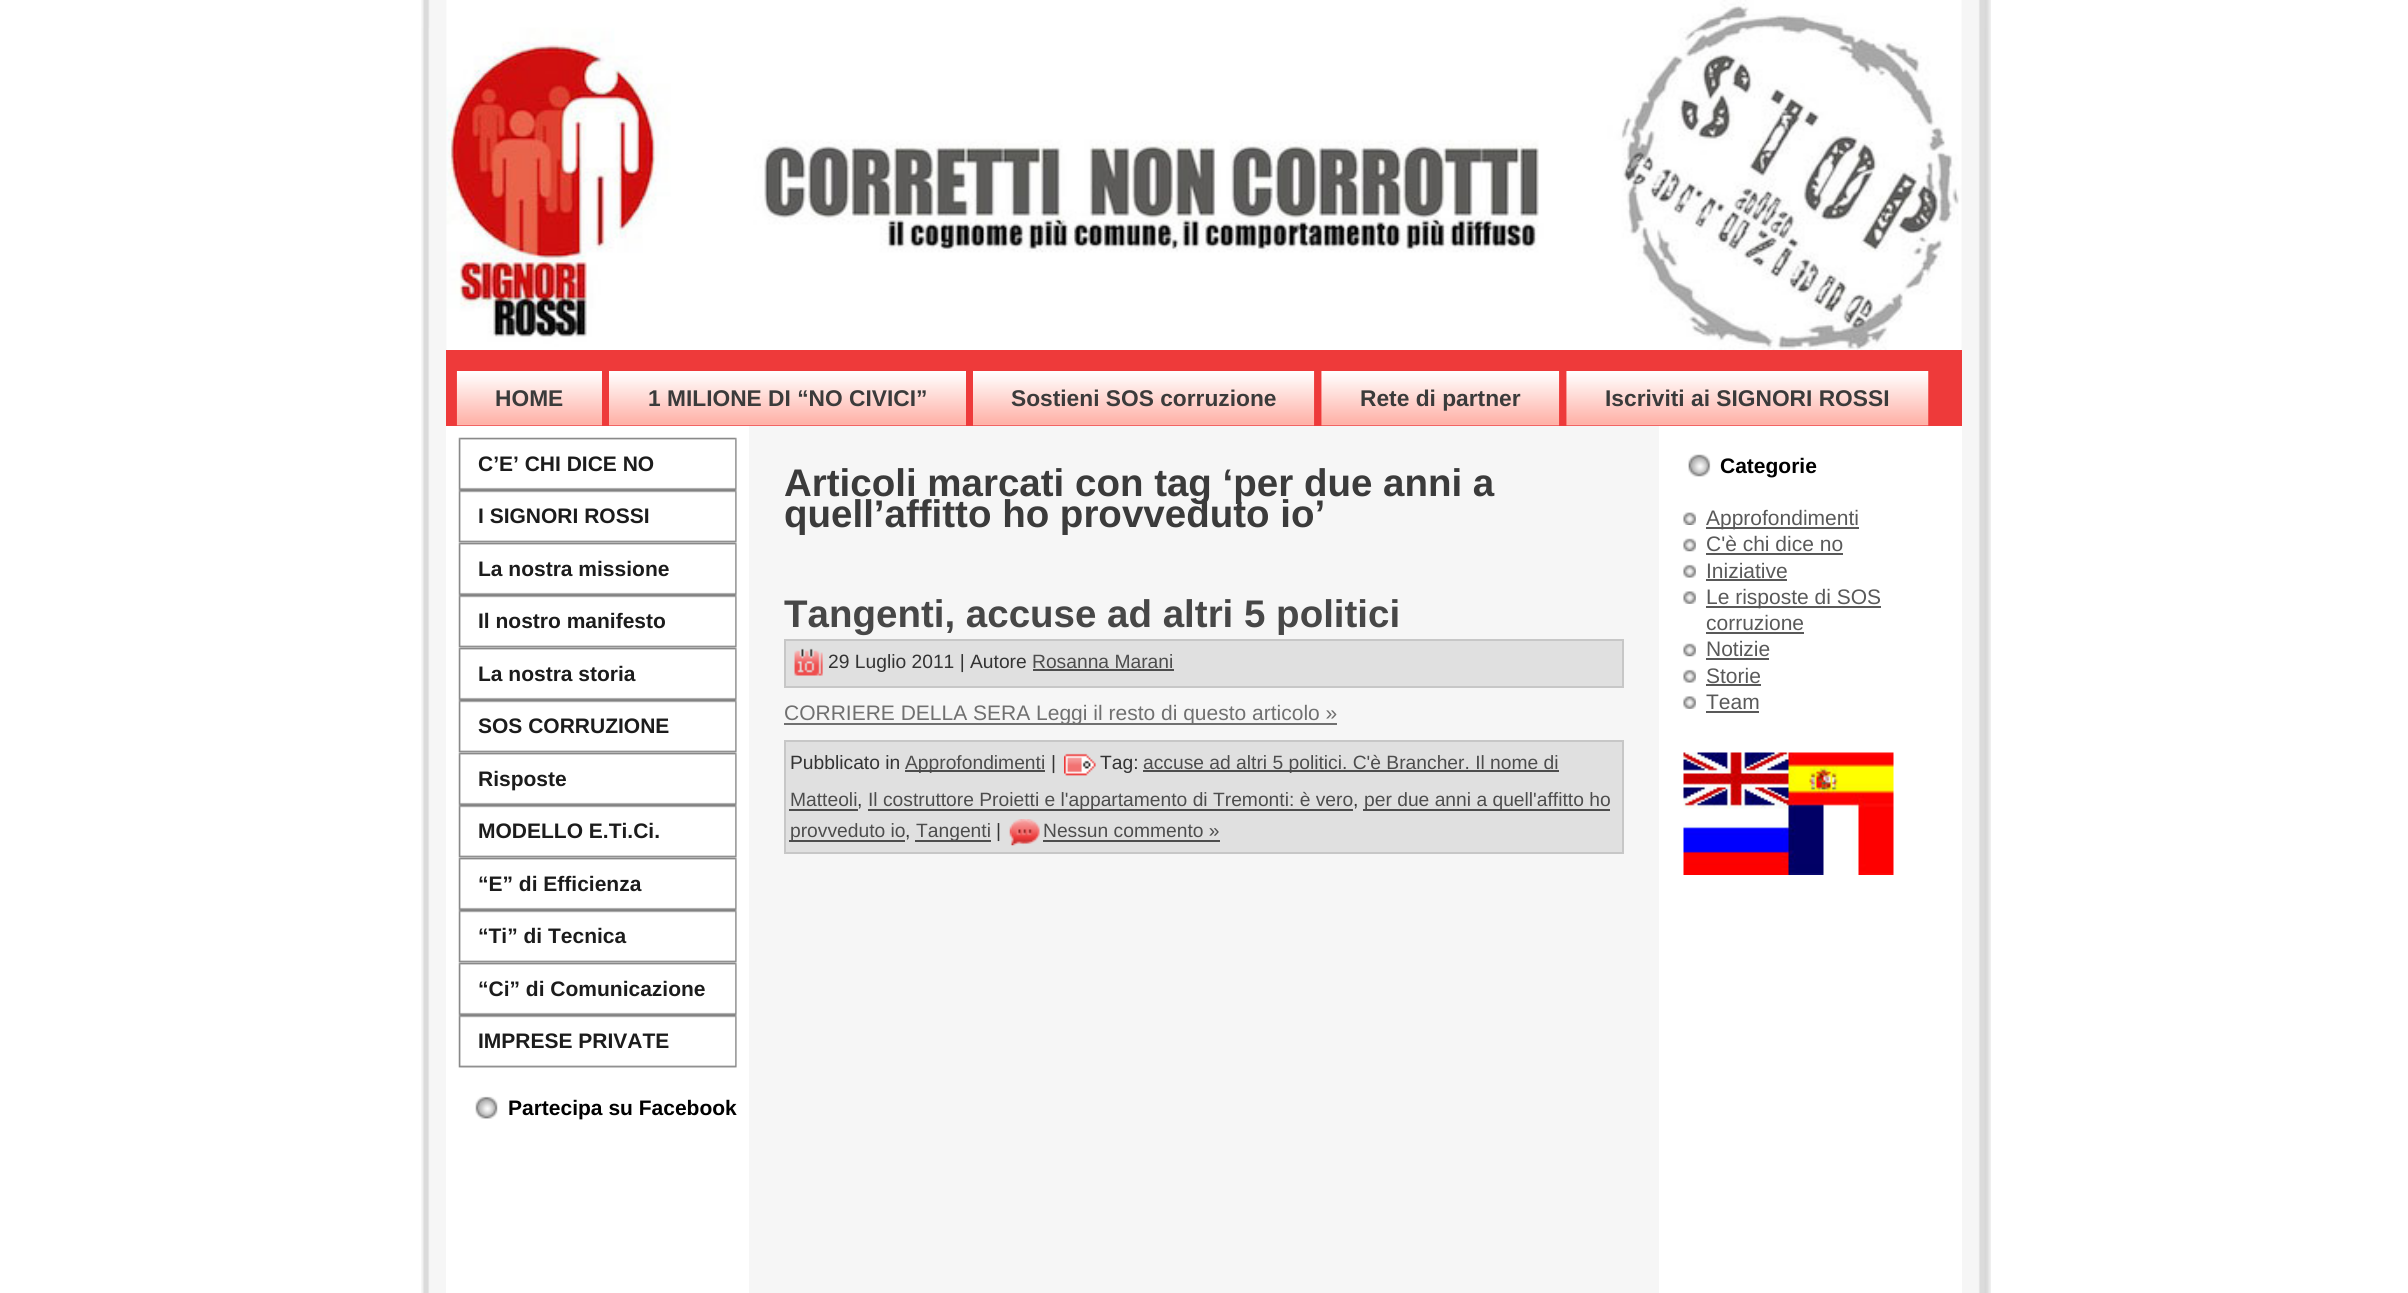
#include <cairo/cairo.h>
#include <math.h>
#include <stddef.h>


static void draw_image(cairo_t *cr, const char *path, double x, double y, double w, double h) {
  cairo_surface_t *image = cairo_image_surface_create_from_png(path);
  cairo_save(cr);
  cairo_set_source_surface(cr, image, x, y);
  cairo_rectangle(cr, x, y, w, h);
  cairo_fill(cr);
  cairo_restore(cr);
  cairo_surface_destroy(image);
}

static void draw(cairo_t *cr) {
  cairo_set_source_rgb(cr, 1, 1, 1);
  cairo_paint(cr);
  draw_image(cr, "images/1.png", 421, 0, 26, 28);
  draw_image(cr, "images/2.png", 1961, 0, 30, 28);
  draw_image(cr, "images/3.png", 421, 28, 26, 1265);
  draw_image(cr, "images/26.png", 1961, 28, 30, 1265);
  draw_image(cr, "images/4.png", 446, 0, 1516, 350);
  cairo_set_source_rgb(cr, 238 / 255.0, 58 / 255.0, 58 / 255.0);
  cairo_rectangle(cr, 446, 350, 1516, 76);
  cairo_fill(cr);
  draw_image(cr, "images/5.png", 456, 371, 146, 55);
  draw_image(cr, "images/6.png", 609, 371, 357, 55);
  draw_image(cr, "images/7.png", 973, 371, 342, 55);
  draw_image(cr, "images/8.png", 1321, 371, 239, 55);
  draw_image(cr, "images/9.png", 1566, 371, 363, 55);
  cairo_set_source_rgb(cr, 1, 1, 1);
  cairo_rectangle(cr, 446, 426, 1, 867);
  cairo_fill(cr);
  draw_image(cr, "images/10.png", 458, 437, 277, 53);
  draw_image(cr, "images/11.png", 735, 437, 2, 53);
  draw_image(cr, "images/12.png", 458, 490, 277, 53);
  draw_image(cr, "images/13.png", 735, 490, 2, 53);
  draw_image(cr, "images/14.png", 458, 542, 277, 53);
  draw_image(cr, "images/15.png", 735, 542, 2, 53);
  draw_image(cr, "images/12.png", 458, 595, 277, 53);
  draw_image(cr, "images/13.png", 735, 595, 2, 53);
  draw_image(cr, "images/14.png", 458, 647, 277, 53);
  draw_image(cr, "images/15.png", 735, 647, 2, 53);
  draw_image(cr, "images/12.png", 458, 700, 277, 53);
  draw_image(cr, "images/13.png", 735, 700, 2, 53);
  draw_image(cr, "images/14.png", 458, 752, 277, 53);
  draw_image(cr, "images/15.png", 735, 752, 2, 53);
  draw_image(cr, "images/12.png", 458, 805, 277, 53);
  draw_image(cr, "images/13.png", 735, 805, 2, 53);
  draw_image(cr, "images/14.png", 458, 857, 277, 53);
  draw_image(cr, "images/15.png", 735, 857, 2, 53);
  draw_image(cr, "images/12.png", 458, 910, 277, 53);
  draw_image(cr, "images/13.png", 735, 910, 2, 53);
  draw_image(cr, "images/14.png", 458, 962, 277, 53);
  draw_image(cr, "images/15.png", 735, 962, 2, 53);
  draw_image(cr, "images/12.png", 458, 1015, 277, 53);
  draw_image(cr, "images/13.png", 735, 1015, 2, 53);
  draw_image(cr, "images/16.png", 475, 1096, 23, 23);
  cairo_set_source_rgb(cr, 246 / 255.0, 246 / 255.0, 246 / 255.0);
  cairo_rectangle(cr, 749, 426, 910, 867);
  cairo_fill(cr);
  cairo_set_source_rgb(cr, 224 / 255.0, 224 / 255.0, 224 / 255.0);
  cairo_rectangle(cr, 785, 640, 838, 47);
  cairo_fill_preserve(cr);
  cairo_set_source_rgb(cr, 199 / 255.0, 199 / 255.0, 199 / 255.0);
  cairo_stroke(cr);
  draw_image(cr, "images/17.png", 794, 648, 29, 28);
  cairo_set_source_rgb(cr, 77 / 255.0, 77 / 255.0, 77 / 255.0);
  cairo_rectangle(cr, 1033, 669, 141, 2);
  cairo_fill(cr);
  cairo_set_source_rgb(cr, 112 / 255.0, 112 / 255.0, 112 / 255.0);
  cairo_rectangle(cr, 784, 723, 553, 2);
  cairo_fill(cr);
  cairo_set_source_rgb(cr, 224 / 255.0, 224 / 255.0, 224 / 255.0);
  cairo_rectangle(cr, 785, 741, 838, 112);
  cairo_fill_preserve(cr);
  cairo_set_source_rgb(cr, 199 / 255.0, 199 / 255.0, 199 / 255.0);
  cairo_stroke(cr);
  cairo_set_source_rgb(cr, 77 / 255.0, 77 / 255.0, 77 / 255.0);
  cairo_rectangle(cr, 905, 770, 140, 2);
  cairo_fill(cr);
  draw_image(cr, "images/18.png", 1064, 753, 32, 23);
  cairo_rectangle(cr, 1143, 770, 416, 2);
  cairo_fill(cr);
  cairo_rectangle(cr, 789, 809, 69, 2);
  cairo_fill(cr);
  cairo_rectangle(cr, 868, 809, 485, 2);
  cairo_fill(cr);
  cairo_rectangle(cr, 1363, 809, 247, 2);
  cairo_fill(cr);
  cairo_rectangle(cr, 789, 840, 116, 2);
  cairo_fill(cr);
  cairo_rectangle(cr, 915, 840, 76, 2);
  cairo_fill(cr);
  draw_image(cr, "images/19.png", 1009, 819, 31, 27);
  cairo_rectangle(cr, 1043, 840, 177, 2);
  cairo_fill(cr);
  cairo_set_source_rgb(cr, 1, 1, 1);
  cairo_rectangle(cr, 1961, 426, 1, 867);
  cairo_fill(cr);
  draw_image(cr, "images/20.png", 1688, 454, 23, 23);
  draw_image(cr, "images/21.png", 1683, 512, 13, 13);
  cairo_set_source_rgb(cr, 89 / 255.0, 89 / 255.0, 89 / 255.0);
  cairo_rectangle(cr, 1706, 527, 153, 2);
  cairo_fill(cr);
  draw_image(cr, "images/22.png", 1683, 538, 13, 14);
  cairo_rectangle(cr, 1706, 553, 137, 2);
  cairo_fill(cr);
  draw_image(cr, "images/23.png", 1683, 564, 13, 14);
  cairo_rectangle(cr, 1706, 579, 81, 2);
  cairo_fill(cr);
  draw_image(cr, "images/24.png", 1683, 591, 13, 13);
  cairo_rectangle(cr, 1706, 606, 175, 2);
  cairo_fill(cr);
  cairo_rectangle(cr, 1706, 632, 98, 2);
  cairo_fill(cr);
  draw_image(cr, "images/22.png", 1683, 643, 13, 14);
  cairo_rectangle(cr, 1706, 658, 63, 2);
  cairo_fill(cr);
  draw_image(cr, "images/23.png", 1683, 669, 13, 14);
  cairo_rectangle(cr, 1706, 684, 55, 2);
  cairo_fill(cr);
  draw_image(cr, "images/24.png", 1683, 696, 13, 13);
  cairo_rectangle(cr, 1706, 711, 53, 2);
  cairo_fill(cr);
  draw_image(cr, "images/25.png", 1683, 752, 211, 123);
  cairo_select_font_face(cr, "Liberation Sans", CAIRO_FONT_SLANT_NORMAL, CAIRO_FONT_WEIGHT_BOLD);
  cairo_set_font_size(cr, 22.75);
  cairo_set_source_rgb(cr, 59 / 255.0, 59 / 255.0, 59 / 255.0);
  cairo_move_to(cr, 495, 406);
  cairo_show_text(cr, "HOME");
  cairo_move_to(cr, 648, 406);
  cairo_show_text(cr, "1 MILIONE DI “NO CIVICI”");
  cairo_move_to(cr, 1011, 406);
  cairo_show_text(cr, "Sostieni SOS corruzione");
  cairo_move_to(cr, 1360, 406);
  cairo_show_text(cr, "Rete di partner");
  cairo_move_to(cr, 1605, 406);
  cairo_show_text(cr, "Iscriviti ai SIGNORI ROSSI");
  cairo_set_font_size(cr, 21);
  cairo_set_source_rgb(cr, 28 / 255.0, 28 / 255.0, 28 / 255.0);
  cairo_move_to(cr, 478, 471);
  cairo_show_text(cr, "C’E’ CHI DICE NO");
  cairo_move_to(cr, 478, 523);
  cairo_show_text(cr, "I SIGNORI ROSSI");
  cairo_move_to(cr, 478, 576);
  cairo_show_text(cr, "La nostra missione");
  cairo_move_to(cr, 478, 628);
  cairo_show_text(cr, "Il nostro manifesto");
  cairo_move_to(cr, 478, 681);
  cairo_show_text(cr, "La nostra storia");
  cairo_move_to(cr, 478, 733);
  cairo_show_text(cr, "SOS CORRUZIONE");
  cairo_move_to(cr, 478, 786);
  cairo_show_text(cr, "Risposte");
  cairo_move_to(cr, 478, 838);
  cairo_show_text(cr, "MODELLO E.Ti.Ci.");
  cairo_move_to(cr, 478, 891);
  cairo_show_text(cr, "“E” di Efficienza");
  cairo_move_to(cr, 478, 943);
  cairo_show_text(cr, "“Ti” di Tecnica");
  cairo_move_to(cr, 478, 996);
  cairo_show_text(cr, "“Ci” di Comunicazione");
  cairo_move_to(cr, 478, 1048);
  cairo_show_text(cr, "IMPRESE PRIVATE");
  cairo_set_source_rgb(cr, 0, 0, 0);
  cairo_move_to(cr, 508, 1115);
  cairo_show_text(cr, "Partecipa su Facebook");
  cairo_set_font_size(cr, 38.5);
  cairo_set_source_rgb(cr, 59 / 255.0, 59 / 255.0, 59 / 255.0);
  cairo_move_to(cr, 784, 496);
  cairo_show_text(cr, "Articoli marcati con tag ‘per due anni a");
  cairo_move_to(cr, 784, 527);
  cairo_show_text(cr, "quell’affitto ho provveduto io’");
  cairo_set_source_rgb(cr, 71 / 255.0, 71 / 255.0, 71 / 255.0);
  cairo_move_to(cr, 784, 627);
  cairo_show_text(cr, "Tangenti, accuse ad altri 5 politici");
  cairo_select_font_face(cr, "Liberation Sans", CAIRO_FONT_SLANT_NORMAL, CAIRO_FONT_WEIGHT_NORMAL);
  cairo_set_font_size(cr, 19.25);
  cairo_set_source_rgb(cr, 51 / 255.0, 51 / 255.0, 51 / 255.0);
  cairo_move_to(cr, 828, 668);
  cairo_show_text(cr, "29 Luglio 2011 | Autore");
  cairo_set_source_rgb(cr, 77 / 255.0, 77 / 255.0, 77 / 255.0);
  cairo_move_to(cr, 1032, 668);
  cairo_show_text(cr, "Rosanna Marani");
  cairo_set_font_size(cr, 21);
  cairo_set_source_rgb(cr, 112 / 255.0, 112 / 255.0, 112 / 255.0);
  cairo_move_to(cr, 784, 720);
  cairo_show_text(cr, "CORRIERE DELLA SERA Leggi il resto di questo articolo »");
  cairo_set_font_size(cr, 19.25);
  cairo_set_source_rgb(cr, 51 / 255.0, 51 / 255.0, 51 / 255.0);
  cairo_move_to(cr, 790, 769);
  cairo_show_text(cr, "Pubblicato in");
  cairo_set_source_rgb(cr, 77 / 255.0, 77 / 255.0, 77 / 255.0);
  cairo_move_to(cr, 905, 769);
  cairo_show_text(cr, "Approfondimenti");
  cairo_set_source_rgb(cr, 51 / 255.0, 51 / 255.0, 51 / 255.0);
  cairo_move_to(cr, 1051, 769);
  cairo_show_text(cr, "|");
  cairo_move_to(cr, 1100, 769);
  cairo_show_text(cr, "Tag:");
  cairo_set_source_rgb(cr, 77 / 255.0, 77 / 255.0, 77 / 255.0);
  cairo_move_to(cr, 1143, 769);
  cairo_show_text(cr, "accuse ad altri 5 politici. C'è Brancher. Il nome di");
  cairo_move_to(cr, 790, 806);
  cairo_show_text(cr, "Matteoli");
  cairo_set_source_rgb(cr, 51 / 255.0, 51 / 255.0, 51 / 255.0);
  cairo_move_to(cr, 857, 806);
  cairo_show_text(cr, ",");
  cairo_set_source_rgb(cr, 77 / 255.0, 77 / 255.0, 77 / 255.0);
  cairo_move_to(cr, 868, 806);
  cairo_show_text(cr, "Il costruttore Proietti e l'appartamento di Tremonti: è vero");
  cairo_set_source_rgb(cr, 51 / 255.0, 51 / 255.0, 51 / 255.0);
  cairo_move_to(cr, 1353, 806);
  cairo_show_text(cr, ",");
  cairo_set_source_rgb(cr, 77 / 255.0, 77 / 255.0, 77 / 255.0);
  cairo_move_to(cr, 1364, 806);
  cairo_show_text(cr, "per due anni a quell'affitto ho");
  cairo_move_to(cr, 790, 837);
  cairo_show_text(cr, "provveduto io");
  cairo_set_source_rgb(cr, 51 / 255.0, 51 / 255.0, 51 / 255.0);
  cairo_move_to(cr, 905, 837);
  cairo_show_text(cr, ",");
  cairo_set_source_rgb(cr, 77 / 255.0, 77 / 255.0, 77 / 255.0);
  cairo_move_to(cr, 916, 837);
  cairo_show_text(cr, "Tangenti");
  cairo_set_source_rgb(cr, 51 / 255.0, 51 / 255.0, 51 / 255.0);
  cairo_move_to(cr, 996, 837);
  cairo_show_text(cr, "|");
  cairo_set_source_rgb(cr, 77 / 255.0, 77 / 255.0, 77 / 255.0);
  cairo_move_to(cr, 1043, 837);
  cairo_show_text(cr, "Nessun commento »");
  cairo_select_font_face(cr, "Liberation Sans", CAIRO_FONT_SLANT_NORMAL, CAIRO_FONT_WEIGHT_BOLD);
  cairo_set_font_size(cr, 21);
  cairo_set_source_rgb(cr, 0, 0, 0);
  cairo_move_to(cr, 1720, 473);
  cairo_show_text(cr, "Categorie");
  cairo_select_font_face(cr, "Liberation Sans", CAIRO_FONT_SLANT_NORMAL, CAIRO_FONT_WEIGHT_NORMAL);
  cairo_set_source_rgb(cr, 89 / 255.0, 89 / 255.0, 89 / 255.0);
  cairo_move_to(cr, 1706, 525);
  cairo_show_text(cr, "Approfondimenti");
  cairo_move_to(cr, 1706, 551);
  cairo_show_text(cr, "C'è chi dice no");
  cairo_move_to(cr, 1706, 578);
  cairo_show_text(cr, "Iniziative");
  cairo_move_to(cr, 1706, 604);
  cairo_show_text(cr, "Le risposte di SOS");
  cairo_move_to(cr, 1706, 630);
  cairo_show_text(cr, "corruzione");
  cairo_move_to(cr, 1706, 656);
  cairo_show_text(cr, "Notizie");
  cairo_move_to(cr, 1706, 683);
  cairo_show_text(cr, "Storie");
  cairo_move_to(cr, 1706, 709);
  cairo_show_text(cr, "Team");
}

int main(void) {
  cairo_surface_t *surface = cairo_image_surface_create(CAIRO_FORMAT_RGB24, 2408, 1293);
  cairo_t *cr = cairo_create(surface);
  cairo_font_options_t *options = cairo_font_options_create();
  cairo_font_options_set_hint_metrics(options, CAIRO_HINT_METRICS_OFF);
  cairo_font_options_set_hint_style(options, CAIRO_HINT_STYLE_NONE);
  cairo_set_font_options(cr, options);
  cairo_set_miter_limit(cr, 4);
  draw(cr);
  cairo_surface_write_to_png(surface, "out.png");
  cairo_font_options_destroy(options);
  cairo_destroy(cr);
  cairo_surface_destroy(surface);
  return 0;
}
